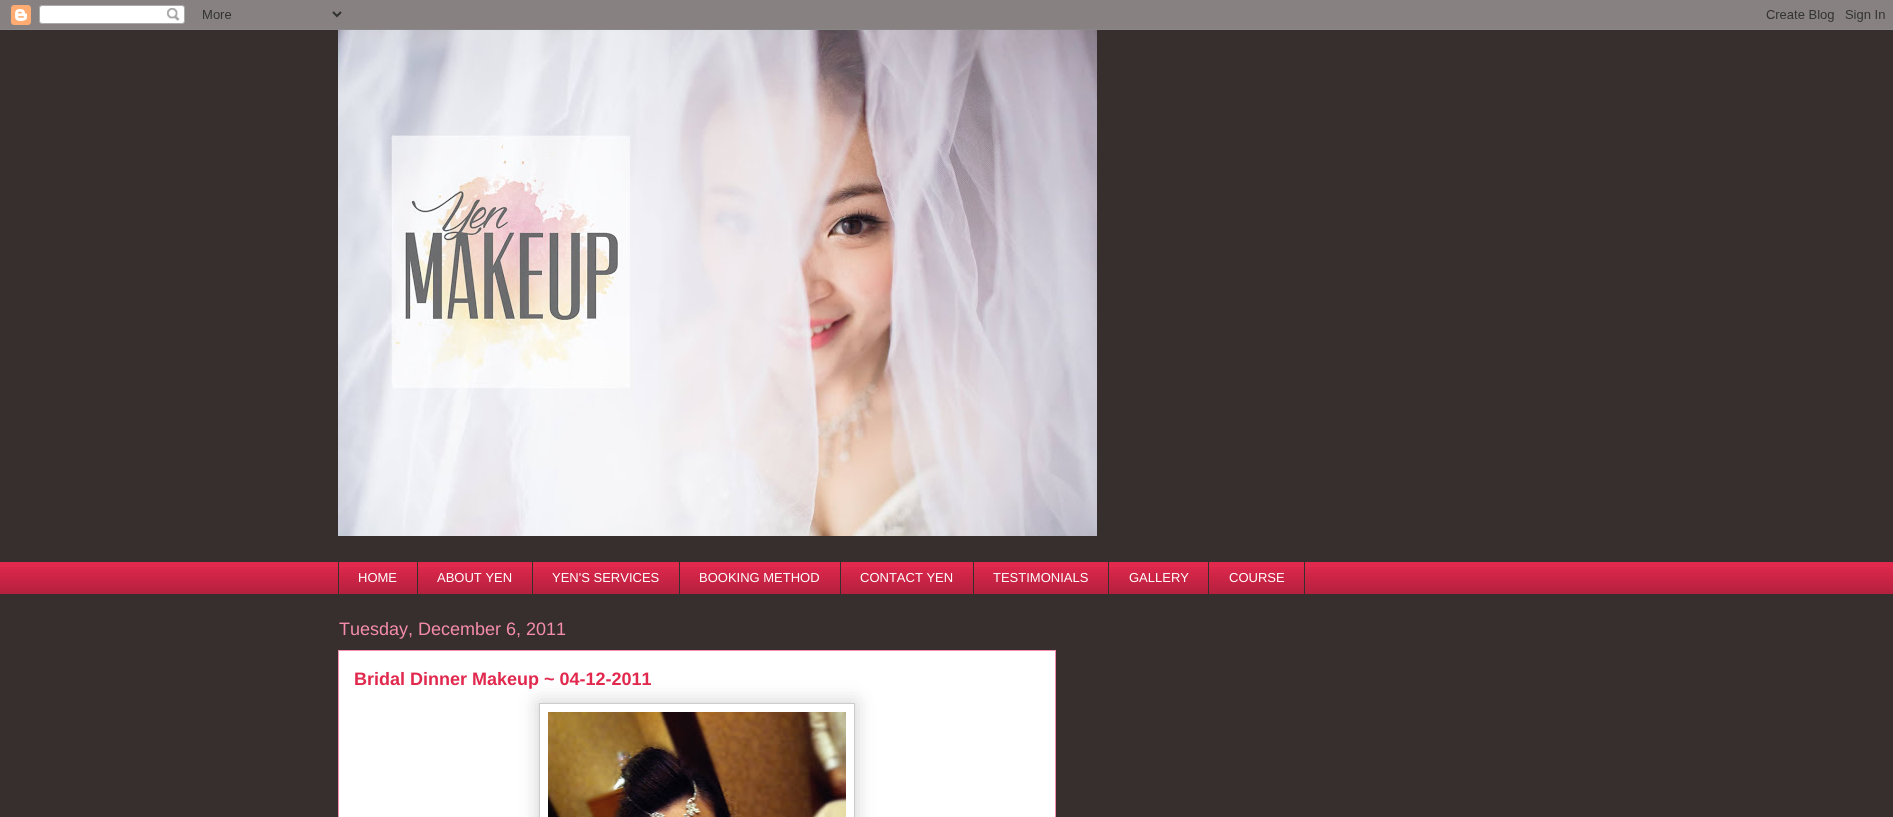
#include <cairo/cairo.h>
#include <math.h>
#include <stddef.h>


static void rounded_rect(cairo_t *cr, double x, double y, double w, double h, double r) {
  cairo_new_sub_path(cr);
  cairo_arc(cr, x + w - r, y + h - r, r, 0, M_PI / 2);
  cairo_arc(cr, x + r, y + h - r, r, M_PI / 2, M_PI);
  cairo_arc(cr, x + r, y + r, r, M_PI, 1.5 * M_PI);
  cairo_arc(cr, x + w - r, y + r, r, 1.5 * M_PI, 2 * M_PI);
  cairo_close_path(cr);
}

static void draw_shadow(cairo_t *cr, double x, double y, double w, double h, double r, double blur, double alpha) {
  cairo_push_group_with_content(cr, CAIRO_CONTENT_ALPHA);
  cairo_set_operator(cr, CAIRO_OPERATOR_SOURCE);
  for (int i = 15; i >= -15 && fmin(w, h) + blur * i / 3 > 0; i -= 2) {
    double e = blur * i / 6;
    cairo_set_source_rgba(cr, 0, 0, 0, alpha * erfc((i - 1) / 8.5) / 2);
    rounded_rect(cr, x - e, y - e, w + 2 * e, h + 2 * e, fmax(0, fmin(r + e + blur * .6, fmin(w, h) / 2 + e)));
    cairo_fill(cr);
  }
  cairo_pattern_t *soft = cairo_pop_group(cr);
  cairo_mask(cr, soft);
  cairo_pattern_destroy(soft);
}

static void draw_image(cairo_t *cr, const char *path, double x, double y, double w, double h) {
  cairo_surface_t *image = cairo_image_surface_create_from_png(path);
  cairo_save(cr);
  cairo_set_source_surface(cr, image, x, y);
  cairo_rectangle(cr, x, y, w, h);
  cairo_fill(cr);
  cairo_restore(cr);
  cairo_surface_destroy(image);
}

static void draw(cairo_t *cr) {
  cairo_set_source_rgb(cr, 55 / 255.0, 47 / 255.0, 45 / 255.0);
  cairo_paint(cr);
  draw_image(cr, "images/1.png", 0, 0, 1893, 30);
  draw_image(cr, "images/2.png", 338, 30, 759, 506);
  cairo_set_source_rgb(cr, 225 / 255.0, 40 / 255.0, 77 / 255.0);
  cairo_rectangle(cr, 0, 562, 1893, 32);
  cairo_fill(cr);
  draw_image(cr, "images/3.png", 0, 567, 1893, 27);
  cairo_set_source_rgb(cr, 55 / 255.0, 47 / 255.0, 45 / 255.0);
  cairo_rectangle(cr, 338, 561, 1, 34);
  cairo_fill(cr);
  cairo_rectangle(cr, 417, 561, 1, 34);
  cairo_fill(cr);
  cairo_rectangle(cr, 532, 561, 1, 34);
  cairo_fill(cr);
  cairo_rectangle(cr, 679, 561, 1, 34);
  cairo_fill(cr);
  cairo_rectangle(cr, 840, 561, 1, 34);
  cairo_fill(cr);
  cairo_rectangle(cr, 973, 561, 1, 34);
  cairo_fill(cr);
  cairo_rectangle(cr, 1108, 561, 1, 34);
  cairo_fill(cr);
  cairo_rectangle(cr, 1208.5, 561.5, 96, 33);
  cairo_set_line_width(cr, 1);
  cairo_stroke(cr);
  cairo_set_source_rgb(cr, 1, 1, 1);
  cairo_rectangle(cr, 338.5, 650.5, 717, 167);
  cairo_fill_preserve(cr);
  cairo_set_source_rgb(cr, 245 / 255.0, 140 / 255.0, 171 / 255.0);
  cairo_stroke(cr);
  cairo_save(cr);
  cairo_set_fill_rule(cr, CAIRO_FILL_RULE_EVEN_ODD);
  cairo_new_path(cr);
  cairo_move_to(cr, 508, 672);
  cairo_line_to(cr, 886, 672);
  cairo_line_to(cr, 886, 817);
  cairo_line_to(cr, 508, 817);
  cairo_close_path(cr);
  cairo_move_to(cr, 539, 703);
  cairo_line_to(cr, 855, 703);
  cairo_line_to(cr, 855, 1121);
  cairo_line_to(cr, 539, 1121);
  cairo_close_path(cr);
  cairo_clip(cr);
  cairo_set_source_rgb(cr, 0, 0, 0);
  draw_shadow(cr, 539, 703, 316, 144, 0, 10, 0.2);
  cairo_restore(cr);
  cairo_rectangle(cr, 539.5, 703.5, 315, 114);
  cairo_set_source_rgb(cr, 204 / 255.0, 204 / 255.0, 204 / 255.0);
  cairo_stroke(cr);
  draw_image(cr, "images/4.png", 548, 712, 298, 105);
  cairo_select_font_face(cr, "Liberation Sans", CAIRO_FONT_SLANT_NORMAL, CAIRO_FONT_WEIGHT_NORMAL);
  cairo_set_font_size(cr, 13);
  cairo_set_source_rgb(cr, 1, 1, 1);
  cairo_move_to(cr, 358, 582);
  cairo_show_text(cr, "HOME");
  cairo_move_to(cr, 437, 582);
  cairo_show_text(cr, "ABOUT YEN");
  cairo_move_to(cr, 552, 582);
  cairo_show_text(cr, "YEN'S SERVICES");
  cairo_move_to(cr, 699, 582);
  cairo_show_text(cr, "BOOKING METHOD");
  cairo_move_to(cr, 860, 582);
  cairo_show_text(cr, "CONTACT YEN");
  cairo_move_to(cr, 993, 582);
  cairo_show_text(cr, "TESTIMONIALS");
  cairo_move_to(cr, 1129, 582);
  cairo_show_text(cr, "GALLERY");
  cairo_move_to(cr, 1229, 582);
  cairo_show_text(cr, "COURSE");
  cairo_set_font_size(cr, 18);
  cairo_set_source_rgb(cr, 245 / 255.0, 140 / 255.0, 171 / 255.0);
  cairo_move_to(cr, 339, 635);
  cairo_show_text(cr, "Tuesday, December 6, 2011");
  cairo_select_font_face(cr, "Liberation Sans", CAIRO_FONT_SLANT_NORMAL, CAIRO_FONT_WEIGHT_BOLD);
  cairo_set_source_rgb(cr, 225 / 255.0, 40 / 255.0, 77 / 255.0);
  cairo_move_to(cr, 354, 685);
  cairo_show_text(cr, "Bridal Dinner Makeup ~ 04-12-2011");
}

int main(void) {
  cairo_surface_t *surface = cairo_image_surface_create(CAIRO_FORMAT_RGB24, 1893, 817);
  cairo_t *cr = cairo_create(surface);
  cairo_font_options_t *options = cairo_font_options_create();
  cairo_font_options_set_hint_metrics(options, CAIRO_HINT_METRICS_OFF);
  cairo_font_options_set_hint_style(options, CAIRO_HINT_STYLE_NONE);
  cairo_set_font_options(cr, options);
  cairo_set_miter_limit(cr, 4);
  draw(cr);
  cairo_surface_write_to_png(surface, "out.png");
  cairo_font_options_destroy(options);
  cairo_destroy(cr);
  cairo_surface_destroy(surface);
  return 0;
}
